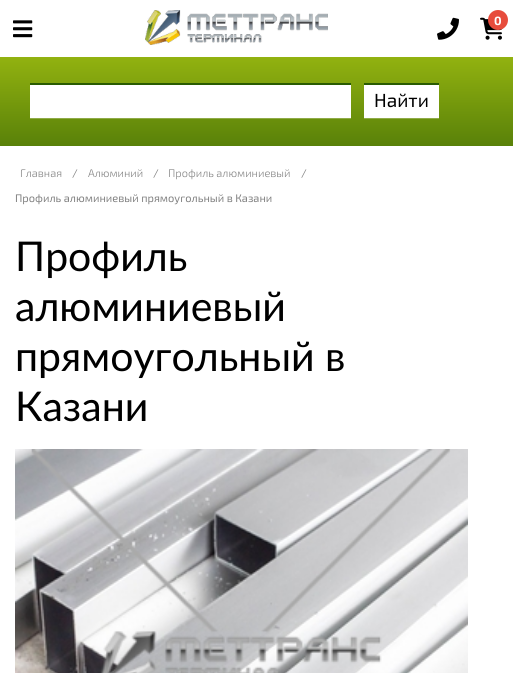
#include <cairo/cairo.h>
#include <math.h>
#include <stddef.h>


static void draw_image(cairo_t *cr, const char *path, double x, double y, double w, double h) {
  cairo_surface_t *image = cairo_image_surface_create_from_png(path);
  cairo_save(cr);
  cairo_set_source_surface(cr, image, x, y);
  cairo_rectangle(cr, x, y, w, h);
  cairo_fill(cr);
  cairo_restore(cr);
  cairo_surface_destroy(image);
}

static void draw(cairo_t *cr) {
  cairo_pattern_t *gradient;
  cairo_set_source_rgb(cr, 1, 1, 1);
  cairo_paint(cr);
  draw_image(cr, "images/1.png", 13, 20, 20, 18);
  draw_image(cr, "images/2.png", 145, 10, 183, 35);
  draw_image(cr, "images/3.png", 437, 17, 22, 23);
  draw_image(cr, "images/4.png", 480, 17, 23, 23);
  cairo_set_source_rgb(cr, 231 / 255.0, 76 / 255.0, 60 / 255.0);
  cairo_arc(cr, 498, 20, 10, 0, 2 * M_PI);
  cairo_fill(cr);
  gradient = cairo_pattern_create_linear(257, 57, 257, 146);
  cairo_pattern_add_color_stop_rgba(gradient, 0, 146 / 255.0, 178 / 255.0, 16 / 255.0, 1);
  cairo_pattern_add_color_stop_rgba(gradient, 1, 89 / 255.0, 129 / 255.0, 9 / 255.0, 1);
  cairo_set_source(cr, gradient);
  cairo_pattern_destroy(gradient);
  cairo_rectangle(cr, 0, 57, 513, 89);
  cairo_fill(cr);
  cairo_set_source_rgb(cr, 1, 1, 1);
  cairo_rectangle(cr, 30, 85, 321, 33);
  cairo_fill(cr);
  cairo_set_source_rgb(cr, 41 / 255.0, 91 / 255.0, 1 / 255.0);
  cairo_rectangle(cr, 30, 83, 321, 2);
  cairo_fill(cr);
  cairo_set_source_rgb(cr, 143 / 255.0, 171 / 255.0, 72 / 255.0);
  cairo_rectangle(cr, 30, 118, 321, 1);
  cairo_fill(cr);
  cairo_set_source_rgb(cr, 1, 1, 1);
  cairo_rectangle(cr, 364, 85, 75, 33);
  cairo_fill(cr);
  cairo_set_source_rgb(cr, 41 / 255.0, 91 / 255.0, 1 / 255.0);
  cairo_rectangle(cr, 364, 83, 75, 2);
  cairo_fill(cr);
  cairo_set_source_rgb(cr, 143 / 255.0, 171 / 255.0, 72 / 255.0);
  cairo_rectangle(cr, 364, 118, 75, 1);
  cairo_fill(cr);
  draw_image(cr, "images/5.png", 15, 449, 453, 224);
  cairo_select_font_face(cr, "Exo 2", CAIRO_FONT_SLANT_NORMAL, CAIRO_FONT_WEIGHT_BOLD);
  cairo_set_font_size(cr, 12);
  cairo_set_source_rgb(cr, 1, 1, 1);
  cairo_move_to(cr, 494, 25);
  cairo_show_text(cr, "0");
  cairo_select_font_face(cr, "Exo 2", CAIRO_FONT_SLANT_NORMAL, CAIRO_FONT_WEIGHT_NORMAL);
  cairo_set_font_size(cr, 19);
  cairo_set_source_rgb(cr, 0, 0, 0);
  cairo_move_to(cr, 374, 107);
  cairo_show_text(cr, "Найти");
  cairo_select_font_face(cr, "Exo 2 Light", CAIRO_FONT_SLANT_NORMAL, CAIRO_FONT_WEIGHT_NORMAL);
  cairo_set_font_size(cr, 11);
  cairo_set_source_rgb(cr, 129 / 255.0, 129 / 255.0, 129 / 255.0);
  cairo_move_to(cr, 20, 177);
  cairo_show_text(cr, "Главная");
  cairo_select_font_face(cr, "Exo 2", CAIRO_FONT_SLANT_NORMAL, CAIRO_FONT_WEIGHT_NORMAL);
  cairo_move_to(cr, 72, 177);
  cairo_show_text(cr, "/");
  cairo_select_font_face(cr, "Exo 2 Light", CAIRO_FONT_SLANT_NORMAL, CAIRO_FONT_WEIGHT_NORMAL);
  cairo_move_to(cr, 88, 177);
  cairo_show_text(cr, "Алюминий");
  cairo_select_font_face(cr, "Exo 2", CAIRO_FONT_SLANT_NORMAL, CAIRO_FONT_WEIGHT_NORMAL);
  cairo_move_to(cr, 153, 177);
  cairo_show_text(cr, "/");
  cairo_select_font_face(cr, "Exo 2 Light", CAIRO_FONT_SLANT_NORMAL, CAIRO_FONT_WEIGHT_NORMAL);
  cairo_move_to(cr, 168, 177);
  cairo_show_text(cr, "Профиль алюминиевый");
  cairo_select_font_face(cr, "Exo 2", CAIRO_FONT_SLANT_NORMAL, CAIRO_FONT_WEIGHT_NORMAL);
  cairo_move_to(cr, 301, 177);
  cairo_show_text(cr, "/");
  cairo_move_to(cr, 15, 202);
  cairo_show_text(cr, "Профиль алюминиевый прямоугольный в Казани");
  cairo_select_font_face(cr, "Lato", CAIRO_FONT_SLANT_NORMAL, CAIRO_FONT_WEIGHT_NORMAL);
  cairo_set_font_size(cr, 41);
  cairo_set_source_rgb(cr, 0, 0, 0);
  cairo_move_to(cr, 15, 271);
  cairo_show_text(cr, "Профиль");
  cairo_move_to(cr, 15, 321);
  cairo_show_text(cr, "алюминиевый");
  cairo_move_to(cr, 15, 371);
  cairo_show_text(cr, "прямоугольный в");
  cairo_move_to(cr, 15, 421);
  cairo_show_text(cr, "Казани");
}

int main(void) {
  cairo_surface_t *surface = cairo_image_surface_create(CAIRO_FORMAT_RGB24, 513, 673);
  cairo_t *cr = cairo_create(surface);
  cairo_font_options_t *options = cairo_font_options_create();
  cairo_font_options_set_hint_metrics(options, CAIRO_HINT_METRICS_OFF);
  cairo_font_options_set_hint_style(options, CAIRO_HINT_STYLE_NONE);
  cairo_set_font_options(cr, options);
  cairo_set_miter_limit(cr, 4);
  draw(cr);
  cairo_surface_write_to_png(surface, "out.png");
  cairo_font_options_destroy(options);
  cairo_destroy(cr);
  cairo_surface_destroy(surface);
  return 0;
}
